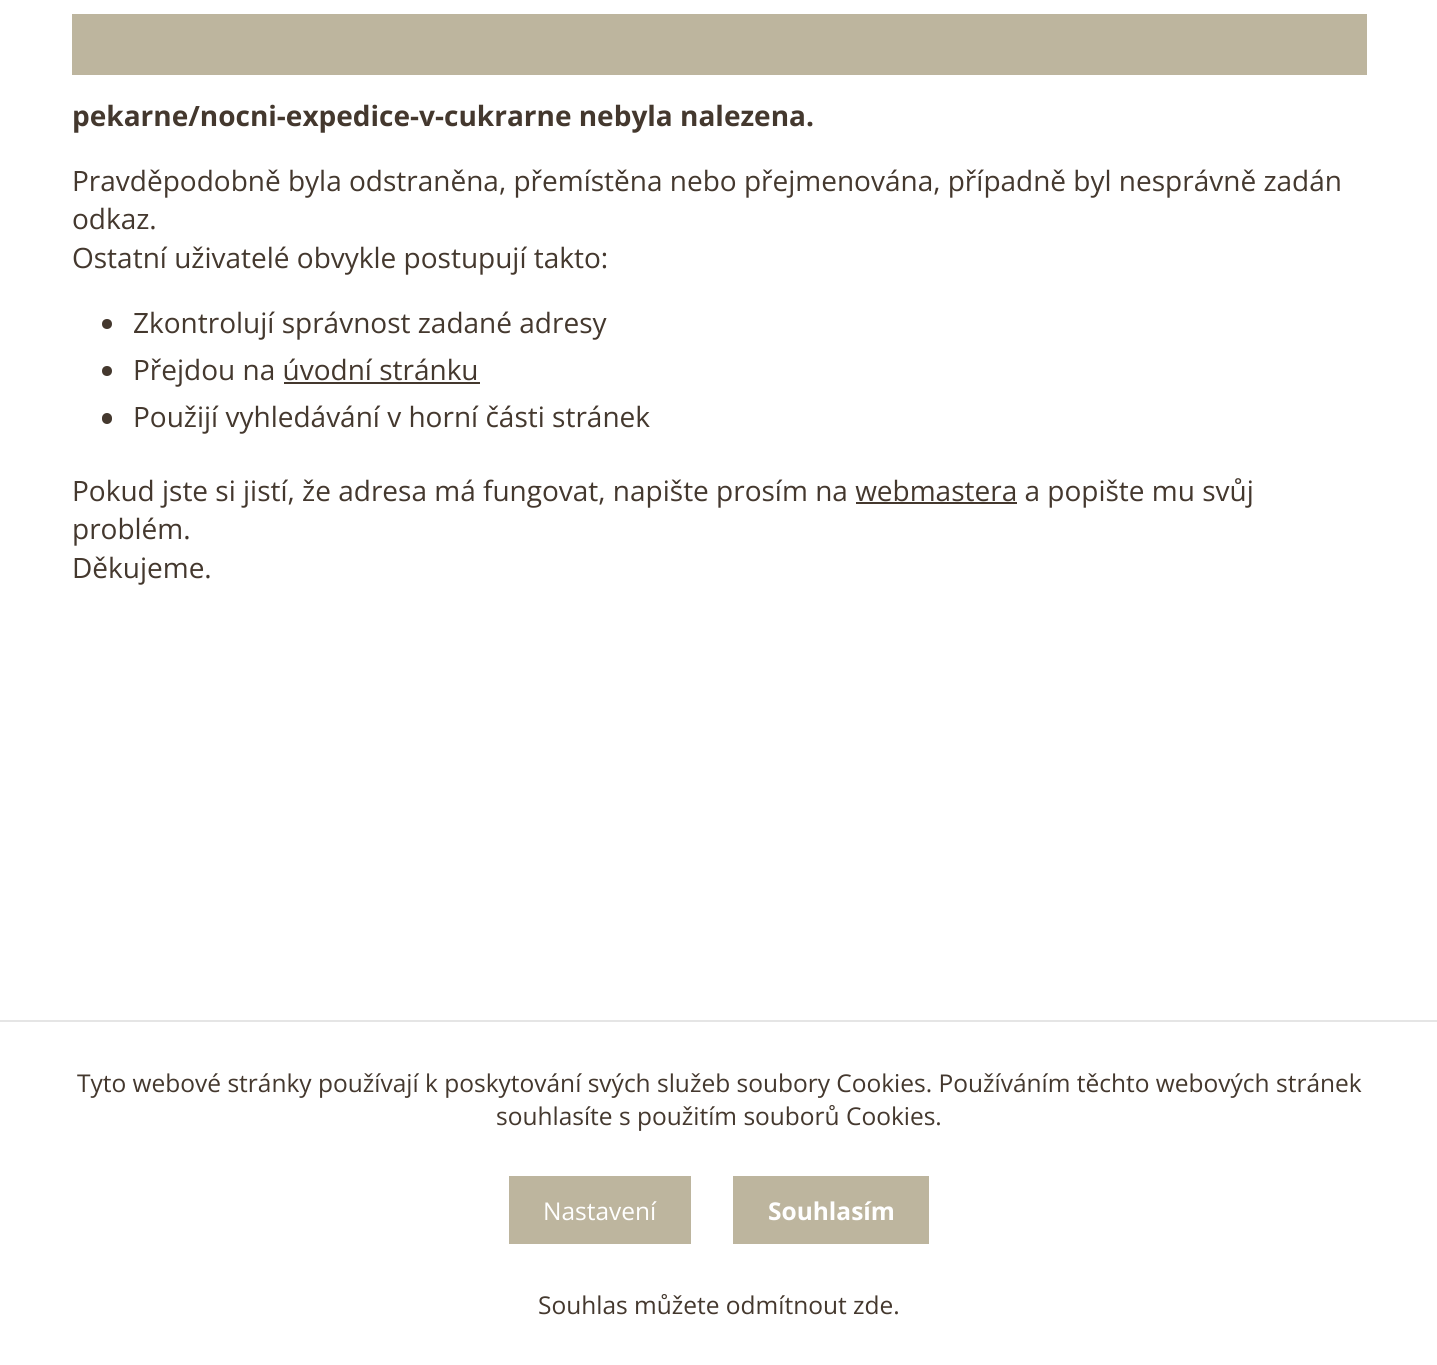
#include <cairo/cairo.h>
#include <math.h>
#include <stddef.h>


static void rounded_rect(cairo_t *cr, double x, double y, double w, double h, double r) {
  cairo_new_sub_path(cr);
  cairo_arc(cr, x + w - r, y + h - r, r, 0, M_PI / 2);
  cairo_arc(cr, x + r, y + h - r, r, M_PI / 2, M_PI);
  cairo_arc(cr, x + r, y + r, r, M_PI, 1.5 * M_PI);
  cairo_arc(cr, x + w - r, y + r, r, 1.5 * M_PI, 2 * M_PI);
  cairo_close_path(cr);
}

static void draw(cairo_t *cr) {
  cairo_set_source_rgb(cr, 1, 1, 1);
  cairo_paint(cr);
  cairo_set_source_rgb(cr, 189 / 255.0, 181 / 255.0, 158 / 255.0);
  cairo_rectangle(cr, 72, 14, 1295, 61);
  cairo_fill(cr);
  cairo_set_source_rgb(cr, 68 / 255.0, 56 / 255.0, 46 / 255.0);
  cairo_arc(cr, 107, 324, 5, 0, 2 * M_PI);
  cairo_fill(cr);
  cairo_arc(cr, 107, 371, 5, 0, 2 * M_PI);
  cairo_fill(cr);
  cairo_rectangle(cr, 284, 382, 196, 2);
  cairo_fill(cr);
  rounded_rect(cr, 102, 413, 10, 11, 5);
  cairo_fill(cr);
  cairo_rectangle(cr, 856, 502, 161, 2);
  cairo_fill(cr);
  cairo_set_source_rgb(cr, 229 / 255.0, 229 / 255.0, 229 / 255.0);
  cairo_rectangle(cr, 0, 1020, 1437, 2);
  cairo_fill(cr);
  cairo_set_source_rgb(cr, 189 / 255.0, 181 / 255.0, 158 / 255.0);
  cairo_rectangle(cr, 509, 1176, 182, 68);
  cairo_fill(cr);
  cairo_rectangle(cr, 733, 1176, 196, 68);
  cairo_fill(cr);
  cairo_select_font_face(cr, "Open Sans", CAIRO_FONT_SLANT_NORMAL, CAIRO_FONT_WEIGHT_BOLD);
  cairo_set_font_size(cr, 28);
  cairo_set_source_rgb(cr, 68 / 255.0, 56 / 255.0, 46 / 255.0);
  cairo_move_to(cr, 72, 126);
  cairo_show_text(cr, "pekarne/nocni-expedice-v-cukrarne nebyla nalezena.");
  cairo_select_font_face(cr, "Open Sans", CAIRO_FONT_SLANT_NORMAL, CAIRO_FONT_WEIGHT_NORMAL);
  cairo_move_to(cr, 72, 191);
  cairo_show_text(cr, "Pravděpodobně byla odstraněna, přemístěna nebo přejmenována, případně byl nesprávně zadán");
  cairo_move_to(cr, 72, 229);
  cairo_show_text(cr, "odkaz.");
  cairo_move_to(cr, 72, 268);
  cairo_show_text(cr, "Ostatní uživatelé obvykle postupují takto:");
  cairo_move_to(cr, 133, 333);
  cairo_show_text(cr, "Zkontrolují správnost zadané adresy");
  cairo_move_to(cr, 133, 380);
  cairo_show_text(cr, "Přejdou na úvodní stránku");
  cairo_move_to(cr, 133, 427);
  cairo_show_text(cr, "Použijí vyhledávání v horní části stránek");
  cairo_move_to(cr, 72, 501);
  cairo_show_text(cr, "Pokud jste si jistí, že adresa má fungovat, napište prosím na webmastera a popište mu svůj");
  cairo_move_to(cr, 72, 539);
  cairo_show_text(cr, "problém.");
  cairo_move_to(cr, 72, 578);
  cairo_show_text(cr, "Děkujeme.");
  cairo_set_font_size(cr, 24.5);
  cairo_move_to(cr, 77, 1092);
  cairo_show_text(cr, "Tyto webové stránky používají k poskytování svých služeb soubory Cookies. Používáním těchto webových stránek");
  cairo_move_to(cr, 496, 1125);
  cairo_show_text(cr, "souhlasíte s použitím souborů Cookies.");
  cairo_set_source_rgb(cr, 1, 1, 1);
  cairo_move_to(cr, 543, 1220);
  cairo_show_text(cr, "Nastavení");
  cairo_select_font_face(cr, "Open Sans", CAIRO_FONT_SLANT_NORMAL, CAIRO_FONT_WEIGHT_BOLD);
  cairo_move_to(cr, 768, 1220);
  cairo_show_text(cr, "Souhlasím");
  cairo_select_font_face(cr, "Open Sans", CAIRO_FONT_SLANT_NORMAL, CAIRO_FONT_WEIGHT_NORMAL);
  cairo_set_source_rgb(cr, 68 / 255.0, 56 / 255.0, 46 / 255.0);
  cairo_move_to(cr, 538, 1314);
  cairo_show_text(cr, "Souhlas můžete odmítnout zde.");
}

int main(void) {
  cairo_surface_t *surface = cairo_image_surface_create(CAIRO_FORMAT_RGB24, 1437, 1365);
  cairo_t *cr = cairo_create(surface);
  cairo_font_options_t *options = cairo_font_options_create();
  cairo_font_options_set_hint_metrics(options, CAIRO_HINT_METRICS_OFF);
  cairo_font_options_set_hint_style(options, CAIRO_HINT_STYLE_NONE);
  cairo_set_font_options(cr, options);
  cairo_set_miter_limit(cr, 4);
  draw(cr);
  cairo_surface_write_to_png(surface, "out.png");
  cairo_font_options_destroy(options);
  cairo_destroy(cr);
  cairo_surface_destroy(surface);
  return 0;
}
